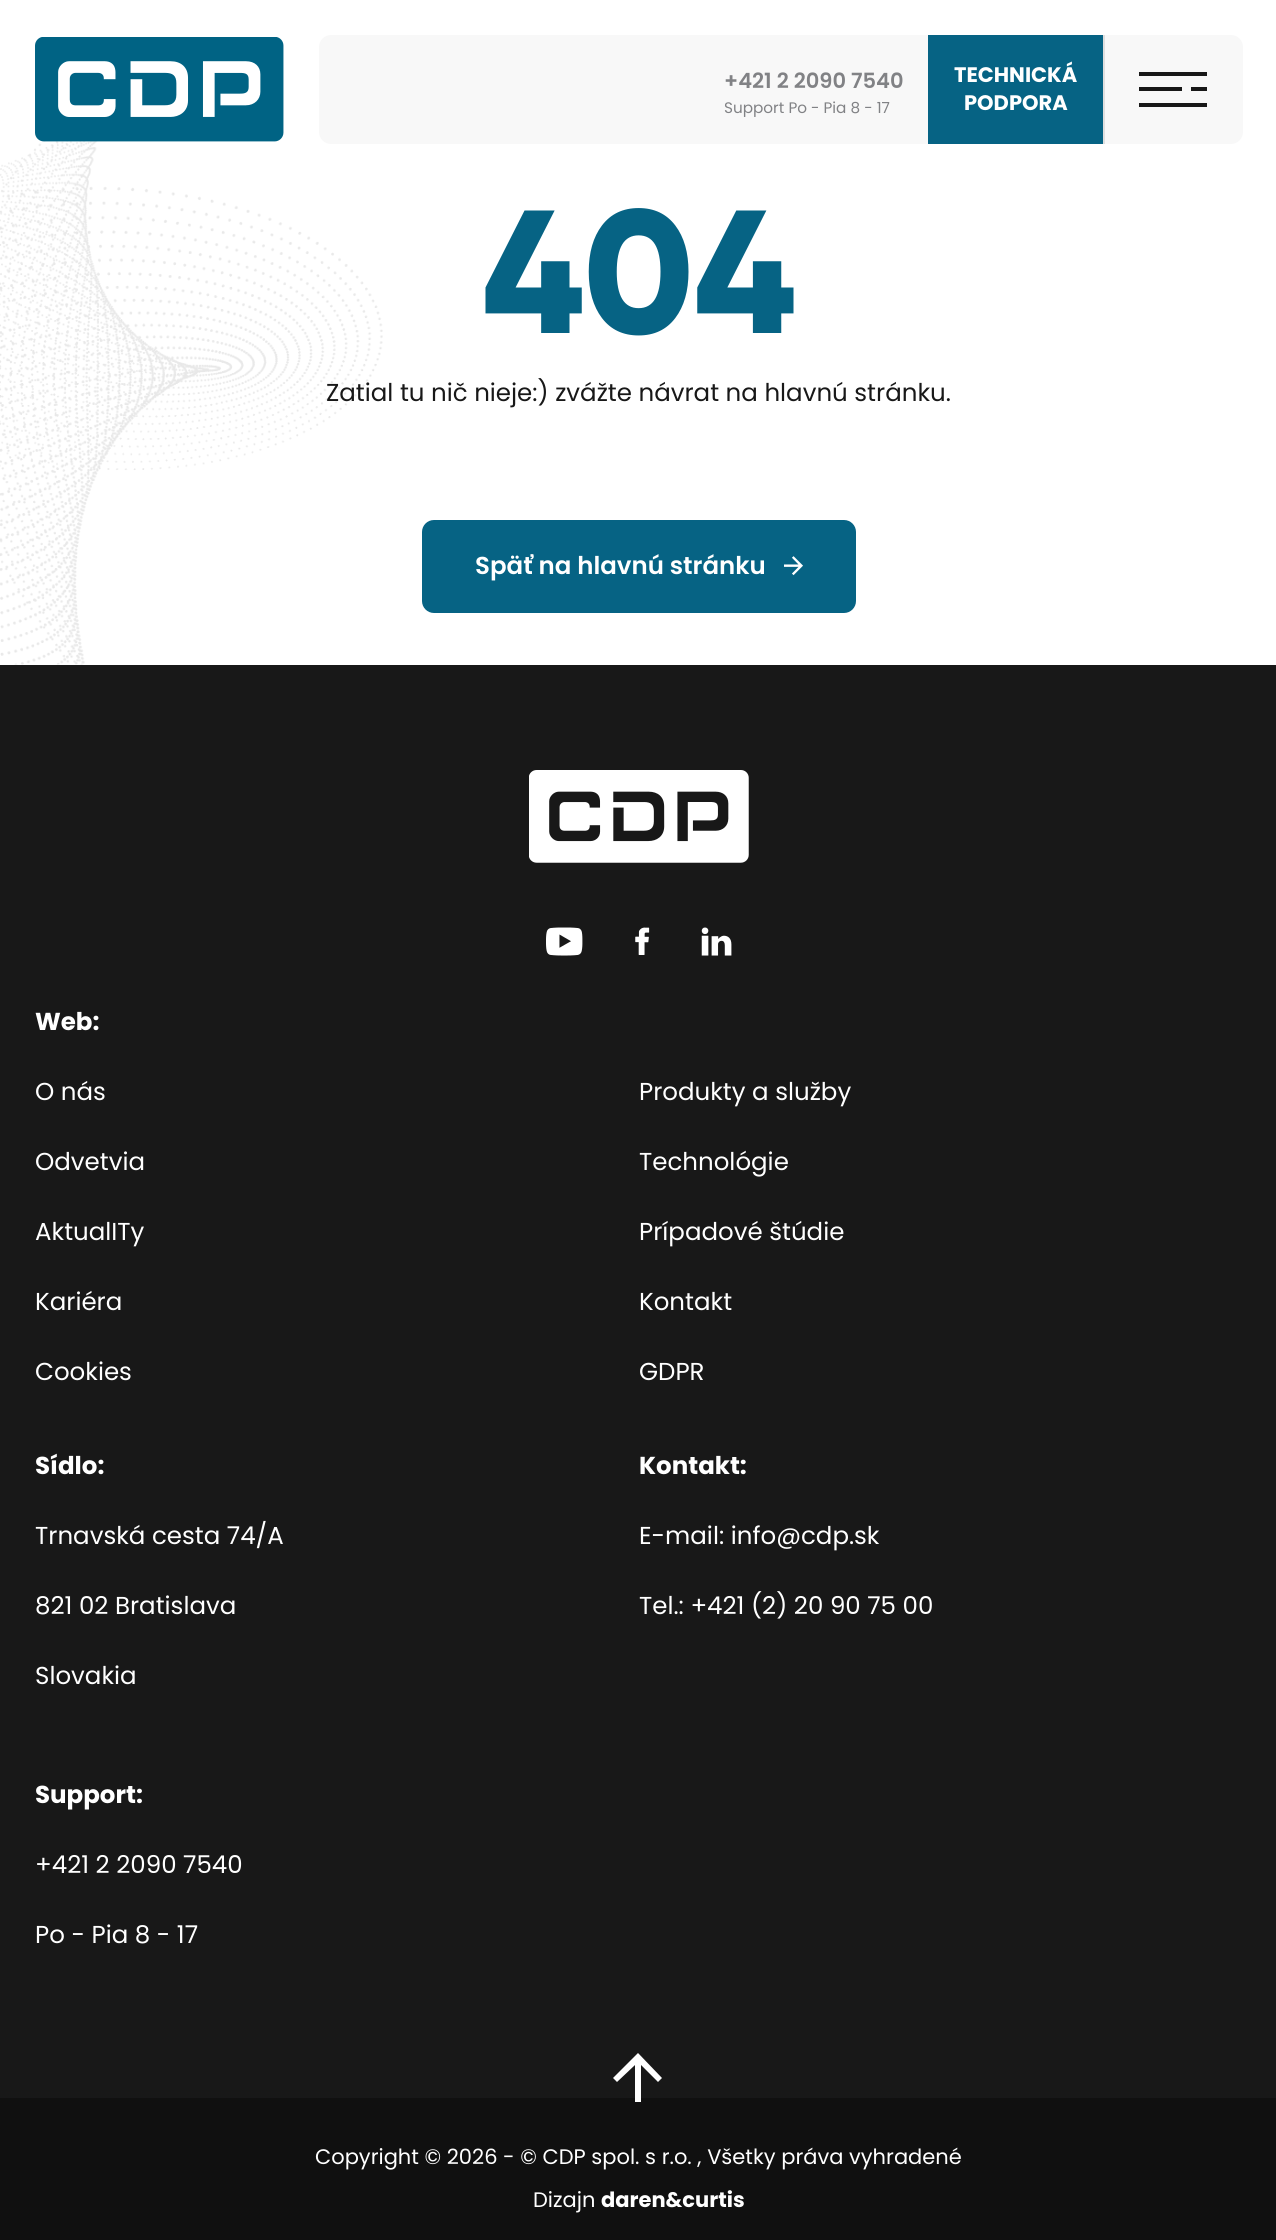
#include <cairo/cairo.h>
#include <math.h>
#include <stddef.h>


static void rounded_rect(cairo_t *cr, double x, double y, double w, double h, double r) {
  cairo_new_sub_path(cr);
  cairo_arc(cr, x + w - r, y + h - r, r, 0, M_PI / 2);
  cairo_arc(cr, x + r, y + h - r, r, M_PI / 2, M_PI);
  cairo_arc(cr, x + r, y + r, r, M_PI, 1.5 * M_PI);
  cairo_arc(cr, x + w - r, y + r, r, 1.5 * M_PI, 2 * M_PI);
  cairo_close_path(cr);
}

static void draw_image(cairo_t *cr, const char *path, double x, double y, double w, double h) {
  cairo_surface_t *image = cairo_image_surface_create_from_png(path);
  cairo_save(cr);
  cairo_set_source_surface(cr, image, x, y);
  cairo_rectangle(cr, x, y, w, h);
  cairo_fill(cr);
  cairo_restore(cr);
  cairo_surface_destroy(image);
}

static void draw(cairo_t *cr) {
  cairo_set_source_rgb(cr, 1, 1, 1);
  cairo_paint(cr);
  draw_image(cr, "images/2.png", 0, 141, 383, 524);
  draw_image(cr, "images/1.png", 35, 37, 249, 105);
  cairo_set_source_rgb(cr, 248 / 255.0, 248 / 255.0, 248 / 255.0);
  rounded_rect(cr, 319, 35, 924, 109, 12);
  cairo_fill(cr);
  cairo_set_source_rgb(cr, 6 / 255.0, 99 / 255.0, 132 / 255.0);
  cairo_rectangle(cr, 928, 35, 175, 109);
  cairo_fill(cr);
  cairo_set_source_rgb(cr, 223 / 255.0, 223 / 255.0, 223 / 255.0);
  cairo_rectangle(cr, 1103, 35, 2, 109);
  cairo_fill(cr);
  cairo_set_source_rgb(cr, 24 / 255.0, 24 / 255.0, 24 / 255.0);
  cairo_new_path(cr);
  cairo_move_to(cr, 1139, 72);
  cairo_line_to(cr, 1207, 72);
  cairo_line_to(cr, 1207, 76);
  cairo_line_to(cr, 1139, 76);
  cairo_close_path(cr);
  cairo_move_to(cr, 1139, 103);
  cairo_line_to(cr, 1207, 103);
  cairo_line_to(cr, 1207, 107);
  cairo_line_to(cr, 1139, 107);
  cairo_close_path(cr);
  cairo_move_to(cr, 1139, 87);
  cairo_line_to(cr, 1182, 87);
  cairo_line_to(cr, 1182, 91);
  cairo_line_to(cr, 1139, 91);
  cairo_close_path(cr);
  cairo_move_to(cr, 1191, 87);
  cairo_line_to(cr, 1207, 87);
  cairo_line_to(cr, 1207, 91);
  cairo_line_to(cr, 1191, 91);
  cairo_close_path(cr);
  cairo_fill(cr);
  cairo_set_source_rgb(cr, 6 / 255.0, 99 / 255.0, 132 / 255.0);
  rounded_rect(cr, 422, 520, 434, 93, 12);
  cairo_fill(cr);
  draw_image(cr, "images/3.png", 784, 556, 19, 20);
  cairo_set_source_rgb(cr, 24 / 255.0, 24 / 255.0, 24 / 255.0);
  cairo_rectangle(cr, 0, 665, 1276, 1433);
  cairo_fill(cr);
  draw_image(cr, "images/4.png", 529, 770, 220, 93);
  draw_image(cr, "images/5.png", 546, 927, 37, 29);
  draw_image(cr, "images/6.png", 635, 927, 15, 28);
  draw_image(cr, "images/7.png", 701, 927, 31, 29);
  cairo_set_source_rgb(cr, 16 / 255.0, 16 / 255.0, 16 / 255.0);
  cairo_rectangle(cr, 0, 2098, 1276, 142);
  cairo_fill(cr);
  cairo_set_source_rgb(cr, 1, 1, 1);
  cairo_new_path(cr);
  cairo_move_to(cr, 613, 2078);
  cairo_line_to(cr, 617, 2082);
  cairo_line_to(cr, 635, 2065);
  cairo_line_to(cr, 635, 2102);
  cairo_line_to(cr, 641, 2102);
  cairo_line_to(cr, 641, 2065);
  cairo_line_to(cr, 658, 2082);
  cairo_line_to(cr, 662, 2078);
  cairo_line_to(cr, 638, 2053);
  cairo_close_path(cr);
  cairo_fill(cr);
  cairo_select_font_face(cr, "Poppins SemiBold", CAIRO_FONT_SLANT_NORMAL, CAIRO_FONT_WEIGHT_NORMAL);
  cairo_set_font_size(cr, 21);
  cairo_set_source_rgb(cr, 129 / 255.0, 130 / 255.0, 133 / 255.0);
  cairo_move_to(cr, 724, 88);
  cairo_show_text(cr, "+421 2 2090 7540");
  cairo_select_font_face(cr, "Poppins", CAIRO_FONT_SLANT_NORMAL, CAIRO_FONT_WEIGHT_NORMAL);
  cairo_set_font_size(cr, 15.25);
  cairo_move_to(cr, 724, 113);
  cairo_show_text(cr, "Support Po - Pia 8 - 17");
  cairo_select_font_face(cr, "Poppins", CAIRO_FONT_SLANT_NORMAL, CAIRO_FONT_WEIGHT_BOLD);
  cairo_set_font_size(cr, 21);
  cairo_set_source_rgb(cr, 1, 1, 1);
  cairo_move_to(cr, 954, 82);
  cairo_show_text(cr, "TECHNICKÁ");
  cairo_move_to(cr, 964, 110);
  cairo_show_text(cr, "PODPORA");
  cairo_select_font_face(cr, "Gilroy ExtraBold", CAIRO_FONT_SLANT_NORMAL, CAIRO_FONT_WEIGHT_NORMAL);
  cairo_set_font_size(cr, 175);
  cairo_set_source_rgb(cr, 6 / 255.0, 99 / 255.0, 132 / 255.0);
  cairo_move_to(cr, 482, 333);
  cairo_show_text(cr, "404");
  cairo_select_font_face(cr, "Poppins", CAIRO_FONT_SLANT_NORMAL, CAIRO_FONT_WEIGHT_NORMAL);
  cairo_set_font_size(cr, 24.5);
  cairo_set_source_rgb(cr, 24 / 255.0, 24 / 255.0, 24 / 255.0);
  cairo_move_to(cr, 326, 401);
  cairo_show_text(cr, "Zatial tu nič nieje:) zvážte návrat na hlavnú stránku.");
  cairo_select_font_face(cr, "Poppins SemiBold", CAIRO_FONT_SLANT_NORMAL, CAIRO_FONT_WEIGHT_NORMAL);
  cairo_set_source_rgb(cr, 1, 1, 1);
  cairo_move_to(cr, 475, 574);
  cairo_show_text(cr, "Späť na hlavnú stránku");
  cairo_select_font_face(cr, "Poppins", CAIRO_FONT_SLANT_NORMAL, CAIRO_FONT_WEIGHT_BOLD);
  cairo_move_to(cr, 35, 1030);
  cairo_show_text(cr, "Web:");
  cairo_select_font_face(cr, "Poppins", CAIRO_FONT_SLANT_NORMAL, CAIRO_FONT_WEIGHT_NORMAL);
  cairo_move_to(cr, 35, 1100);
  cairo_show_text(cr, "O nás");
  cairo_move_to(cr, 639, 1100);
  cairo_show_text(cr, "Produkty a služby");
  cairo_move_to(cr, 35, 1170);
  cairo_show_text(cr, "Odvetvia");
  cairo_move_to(cr, 639, 1170);
  cairo_show_text(cr, "Technológie");
  cairo_move_to(cr, 35, 1240);
  cairo_show_text(cr, "AktualITy");
  cairo_move_to(cr, 639, 1240);
  cairo_show_text(cr, "Prípadové štúdie");
  cairo_move_to(cr, 35, 1310);
  cairo_show_text(cr, "Kariéra");
  cairo_move_to(cr, 639, 1310);
  cairo_show_text(cr, "Kontakt");
  cairo_move_to(cr, 35, 1380);
  cairo_show_text(cr, "Cookies");
  cairo_move_to(cr, 639, 1380);
  cairo_show_text(cr, "GDPR");
  cairo_select_font_face(cr, "Poppins", CAIRO_FONT_SLANT_NORMAL, CAIRO_FONT_WEIGHT_BOLD);
  cairo_move_to(cr, 35, 1474);
  cairo_show_text(cr, "Sídlo:");
  cairo_select_font_face(cr, "Poppins", CAIRO_FONT_SLANT_NORMAL, CAIRO_FONT_WEIGHT_NORMAL);
  cairo_move_to(cr, 35, 1544);
  cairo_show_text(cr, "Trnavská cesta 74/A");
  cairo_move_to(cr, 35, 1614);
  cairo_show_text(cr, "821 02 Bratislava");
  cairo_move_to(cr, 35, 1684);
  cairo_show_text(cr, "Slovakia");
  cairo_select_font_face(cr, "Poppins", CAIRO_FONT_SLANT_NORMAL, CAIRO_FONT_WEIGHT_BOLD);
  cairo_move_to(cr, 639, 1474);
  cairo_show_text(cr, "Kontakt:");
  cairo_select_font_face(cr, "Poppins", CAIRO_FONT_SLANT_NORMAL, CAIRO_FONT_WEIGHT_NORMAL);
  cairo_move_to(cr, 639, 1544);
  cairo_show_text(cr, "E-mail: info@cdp.sk");
  cairo_move_to(cr, 639, 1614);
  cairo_show_text(cr, "Tel.: +421 (2) 20 90 75 00");
  cairo_select_font_face(cr, "Poppins", CAIRO_FONT_SLANT_NORMAL, CAIRO_FONT_WEIGHT_BOLD);
  cairo_move_to(cr, 35, 1803);
  cairo_show_text(cr, "Support:");
  cairo_select_font_face(cr, "Poppins", CAIRO_FONT_SLANT_NORMAL, CAIRO_FONT_WEIGHT_NORMAL);
  cairo_move_to(cr, 35, 1873);
  cairo_show_text(cr, "+421 2 2090 7540");
  cairo_move_to(cr, 35, 1943);
  cairo_show_text(cr, "Po - Pia 8 - 17");
  cairo_set_font_size(cr, 21);
  cairo_move_to(cr, 315, 2164);
  cairo_show_text(cr, "Copyright © 2026 - © CDP spol. s r.o. , Všetky práva vyhradené");
  cairo_move_to(cr, 533, 2207);
  cairo_show_text(cr, "Dizajn");
  cairo_select_font_face(cr, "Poppins", CAIRO_FONT_SLANT_NORMAL, CAIRO_FONT_WEIGHT_BOLD);
  cairo_move_to(cr, 601, 2207);
  cairo_show_text(cr, "daren&curtis");
}

int main(void) {
  cairo_surface_t *surface = cairo_image_surface_create(CAIRO_FORMAT_RGB24, 1276, 2240);
  cairo_t *cr = cairo_create(surface);
  cairo_font_options_t *options = cairo_font_options_create();
  cairo_font_options_set_hint_metrics(options, CAIRO_HINT_METRICS_OFF);
  cairo_font_options_set_hint_style(options, CAIRO_HINT_STYLE_NONE);
  cairo_set_font_options(cr, options);
  cairo_set_miter_limit(cr, 4);
  draw(cr);
  cairo_surface_write_to_png(surface, "out.png");
  cairo_font_options_destroy(options);
  cairo_destroy(cr);
  cairo_surface_destroy(surface);
  return 0;
}
